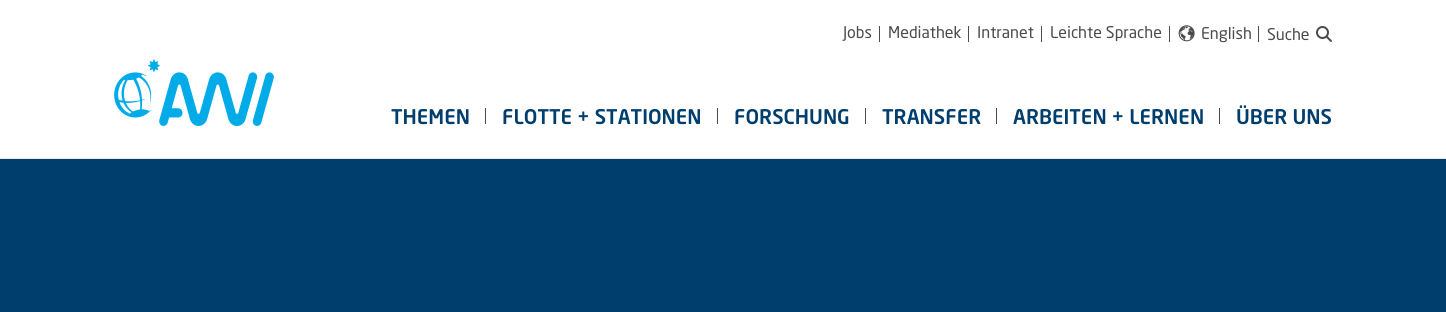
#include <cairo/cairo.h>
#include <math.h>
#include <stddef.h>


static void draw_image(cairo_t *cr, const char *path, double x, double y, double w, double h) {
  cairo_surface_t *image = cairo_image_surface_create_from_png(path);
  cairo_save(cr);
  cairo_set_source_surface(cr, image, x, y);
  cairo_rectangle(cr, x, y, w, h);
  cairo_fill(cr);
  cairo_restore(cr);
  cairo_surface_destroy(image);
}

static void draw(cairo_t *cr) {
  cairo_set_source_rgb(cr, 0, 62 / 255.0, 110 / 255.0);
  cairo_paint(cr);
  cairo_set_source_rgb(cr, 1, 1, 1);
  cairo_rectangle(cr, 0, 0, 1446, 158);
  cairo_fill(cr);
  cairo_set_source_rgb(cr, 229 / 255.0, 229 / 255.0, 229 / 255.0);
  cairo_rectangle(cr, 0, 158, 1446, 1);
  cairo_fill(cr);
  cairo_set_source_rgb(cr, 75 / 255.0, 75 / 255.0, 76 / 255.0);
  cairo_rectangle(cr, 879, 26, 1, 16);
  cairo_fill(cr);
  cairo_rectangle(cr, 968, 26, 1, 16);
  cairo_fill(cr);
  cairo_rectangle(cr, 1041, 26, 1, 16);
  cairo_fill(cr);
  cairo_rectangle(cr, 1169, 26, 1, 16);
  cairo_fill(cr);
  draw_image(cr, "images/1.png", 1178, 25, 17, 17);
  cairo_rectangle(cr, 1258, 26, 1, 16);
  cairo_fill(cr);
  draw_image(cr, "images/2.png", 1316, 26, 16, 16);
  draw_image(cr, "images/3.png", 114, 59, 160, 67);
  cairo_rectangle(cr, 485, 108, 1, 16);
  cairo_fill(cr);
  cairo_rectangle(cr, 717, 108, 1, 16);
  cairo_fill(cr);
  cairo_rectangle(cr, 865, 108, 1, 16);
  cairo_fill(cr);
  cairo_rectangle(cr, 996, 108, 1, 16);
  cairo_fill(cr);
  cairo_rectangle(cr, 1219, 108, 1, 16);
  cairo_fill(cr);
  cairo_select_font_face(cr, "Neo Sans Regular", CAIRO_FONT_SLANT_NORMAL, CAIRO_FONT_WEIGHT_NORMAL);
  cairo_set_font_size(cr, 16);
  cairo_move_to(cr, 843, 38);
  cairo_show_text(cr, "Jobs");
  cairo_move_to(cr, 888, 38);
  cairo_show_text(cr, "Mediathek");
  cairo_move_to(cr, 977, 38);
  cairo_show_text(cr, "Intranet");
  cairo_move_to(cr, 1050, 38);
  cairo_show_text(cr, "Leichte Sprache");
  cairo_move_to(cr, 1201, 39);
  cairo_show_text(cr, "English");
  cairo_move_to(cr, 1267, 40);
  cairo_show_text(cr, "Suche");
  cairo_select_font_face(cr, "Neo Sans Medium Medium", CAIRO_FONT_SLANT_NORMAL, CAIRO_FONT_WEIGHT_NORMAL);
  cairo_set_font_size(cr, 20);
  cairo_set_source_rgb(cr, 0, 62 / 255.0, 110 / 255.0);
  cairo_move_to(cr, 391, 124);
  cairo_show_text(cr, "THEMEN");
  cairo_move_to(cr, 502, 124);
  cairo_show_text(cr, "FLOTTE + STATIONEN");
  cairo_move_to(cr, 734, 124);
  cairo_show_text(cr, "FORSCHUNG");
  cairo_move_to(cr, 882, 124);
  cairo_show_text(cr, "TRANSFER");
  cairo_move_to(cr, 1013, 124);
  cairo_show_text(cr, "ARBEITEN + LERNEN");
  cairo_move_to(cr, 1236, 124);
  cairo_show_text(cr, "ÜBER UNS");
}

int main(void) {
  cairo_surface_t *surface = cairo_image_surface_create(CAIRO_FORMAT_RGB24, 1446, 312);
  cairo_t *cr = cairo_create(surface);
  cairo_font_options_t *options = cairo_font_options_create();
  cairo_font_options_set_hint_metrics(options, CAIRO_HINT_METRICS_OFF);
  cairo_font_options_set_hint_style(options, CAIRO_HINT_STYLE_NONE);
  cairo_set_font_options(cr, options);
  cairo_set_miter_limit(cr, 4);
  draw(cr);
  cairo_surface_write_to_png(surface, "out.png");
  cairo_font_options_destroy(options);
  cairo_destroy(cr);
  cairo_surface_destroy(surface);
  return 0;
}
